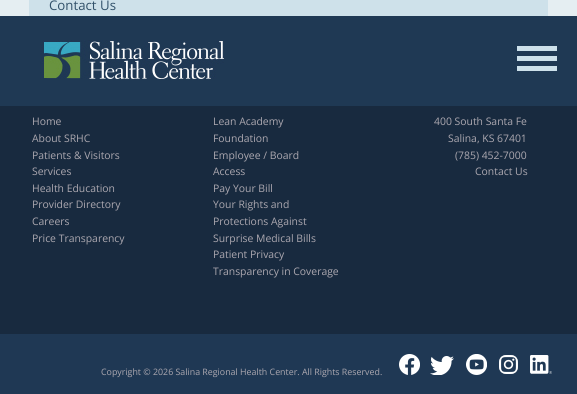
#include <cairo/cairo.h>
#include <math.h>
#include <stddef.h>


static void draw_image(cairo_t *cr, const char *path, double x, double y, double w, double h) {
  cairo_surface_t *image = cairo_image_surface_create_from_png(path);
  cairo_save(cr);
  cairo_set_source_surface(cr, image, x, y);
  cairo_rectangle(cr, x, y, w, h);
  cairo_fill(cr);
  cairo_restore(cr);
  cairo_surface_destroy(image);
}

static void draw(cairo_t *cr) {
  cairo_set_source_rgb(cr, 24 / 255.0, 42 / 255.0, 63 / 255.0);
  cairo_paint(cr);
  cairo_set_source_rgb(cr, 229 / 255.0, 238 / 255.0, 242 / 255.0);
  cairo_rectangle(cr, 0, 0, 577, 16);
  cairo_fill(cr);
  cairo_set_source_rgb(cr, 206 / 255.0, 225 / 255.0, 234 / 255.0);
  cairo_rectangle(cr, 29, 0, 519, 16);
  cairo_fill(cr);
  cairo_set_source_rgb(cr, 31 / 255.0, 57 / 255.0, 84 / 255.0);
  cairo_rectangle(cr, 0, 16, 577, 90);
  cairo_fill(cr);
  draw_image(cr, "images/1.png", 40, 40, 184, 39);
  draw_image(cr, "images/2.png", 517, 46, 40, 25);
  cairo_set_source_rgb(cr, 31 / 255.0, 56 / 255.0, 84 / 255.0);
  cairo_rectangle(cr, 0, 334, 577, 60);
  cairo_fill(cr);
  draw_image(cr, "images/3.png", 399, 354, 21, 21);
  draw_image(cr, "images/4.png", 430, 356, 24, 19);
  draw_image(cr, "images/5.png", 466, 354, 21, 21);
  draw_image(cr, "images/6.png", 499, 355, 19, 19);
  draw_image(cr, "images/7.png", 530, 355, 22, 19);
  cairo_select_font_face(cr, "Open Sans", CAIRO_FONT_SLANT_NORMAL, CAIRO_FONT_WEIGHT_NORMAL);
  cairo_set_font_size(cr, 13.25);
  cairo_set_source_rgb(cr, 49 / 255.0, 81 / 255.0, 106 / 255.0);
  cairo_move_to(cr, 49, 10);
  cairo_show_text(cr, "Contact Us");
  cairo_set_font_size(cr, 10.4);
  cairo_set_source_rgb(cr, 172 / 255.0, 168 / 255.0, 176 / 255.0);
  cairo_move_to(cr, 32, 125);
  cairo_show_text(cr, "Home");
  cairo_move_to(cr, 32, 142);
  cairo_show_text(cr, "About SRHC");
  cairo_move_to(cr, 32, 159);
  cairo_show_text(cr, "Patients & Visitors");
  cairo_move_to(cr, 32, 175);
  cairo_show_text(cr, "Services");
  cairo_move_to(cr, 32, 192);
  cairo_show_text(cr, "Health Education");
  cairo_move_to(cr, 32, 208);
  cairo_show_text(cr, "Provider Directory");
  cairo_move_to(cr, 32, 225);
  cairo_show_text(cr, "Careers");
  cairo_move_to(cr, 32, 242);
  cairo_show_text(cr, "Price Transparency");
  cairo_move_to(cr, 213, 125);
  cairo_show_text(cr, "Lean Academy");
  cairo_move_to(cr, 213, 142);
  cairo_show_text(cr, "Foundation");
  cairo_move_to(cr, 213, 159);
  cairo_show_text(cr, "Employee / Board");
  cairo_move_to(cr, 213, 175);
  cairo_show_text(cr, "Access");
  cairo_move_to(cr, 213, 192);
  cairo_show_text(cr, "Pay Your Bill");
  cairo_move_to(cr, 213, 208);
  cairo_show_text(cr, "Your Rights and");
  cairo_move_to(cr, 213, 225);
  cairo_show_text(cr, "Protections Against");
  cairo_move_to(cr, 213, 242);
  cairo_show_text(cr, "Surprise Medical Bills");
  cairo_move_to(cr, 213, 258);
  cairo_show_text(cr, "Patient Privacy");
  cairo_move_to(cr, 213, 275);
  cairo_show_text(cr, "Transparency in Coverage");
  cairo_move_to(cr, 434, 125);
  cairo_show_text(cr, "400 South Santa Fe");
  cairo_move_to(cr, 448, 142);
  cairo_show_text(cr, "Salina, KS 67401");
  cairo_move_to(cr, 455, 159);
  cairo_show_text(cr, "(785) 452-7000");
  cairo_move_to(cr, 475, 175);
  cairo_show_text(cr, "Contact Us");
  cairo_set_font_size(cr, 8.85);
  cairo_move_to(cr, 101, 375);
  cairo_show_text(cr, "Copyright © 2026 Salina Regional Health Center. All Rights Reserved.");
}

int main(void) {
  cairo_surface_t *surface = cairo_image_surface_create(CAIRO_FORMAT_RGB24, 577, 394);
  cairo_t *cr = cairo_create(surface);
  cairo_font_options_t *options = cairo_font_options_create();
  cairo_font_options_set_hint_metrics(options, CAIRO_HINT_METRICS_OFF);
  cairo_font_options_set_hint_style(options, CAIRO_HINT_STYLE_NONE);
  cairo_set_font_options(cr, options);
  cairo_set_miter_limit(cr, 4);
  draw(cr);
  cairo_surface_write_to_png(surface, "out.png");
  cairo_font_options_destroy(options);
  cairo_destroy(cr);
  cairo_surface_destroy(surface);
  return 0;
}
